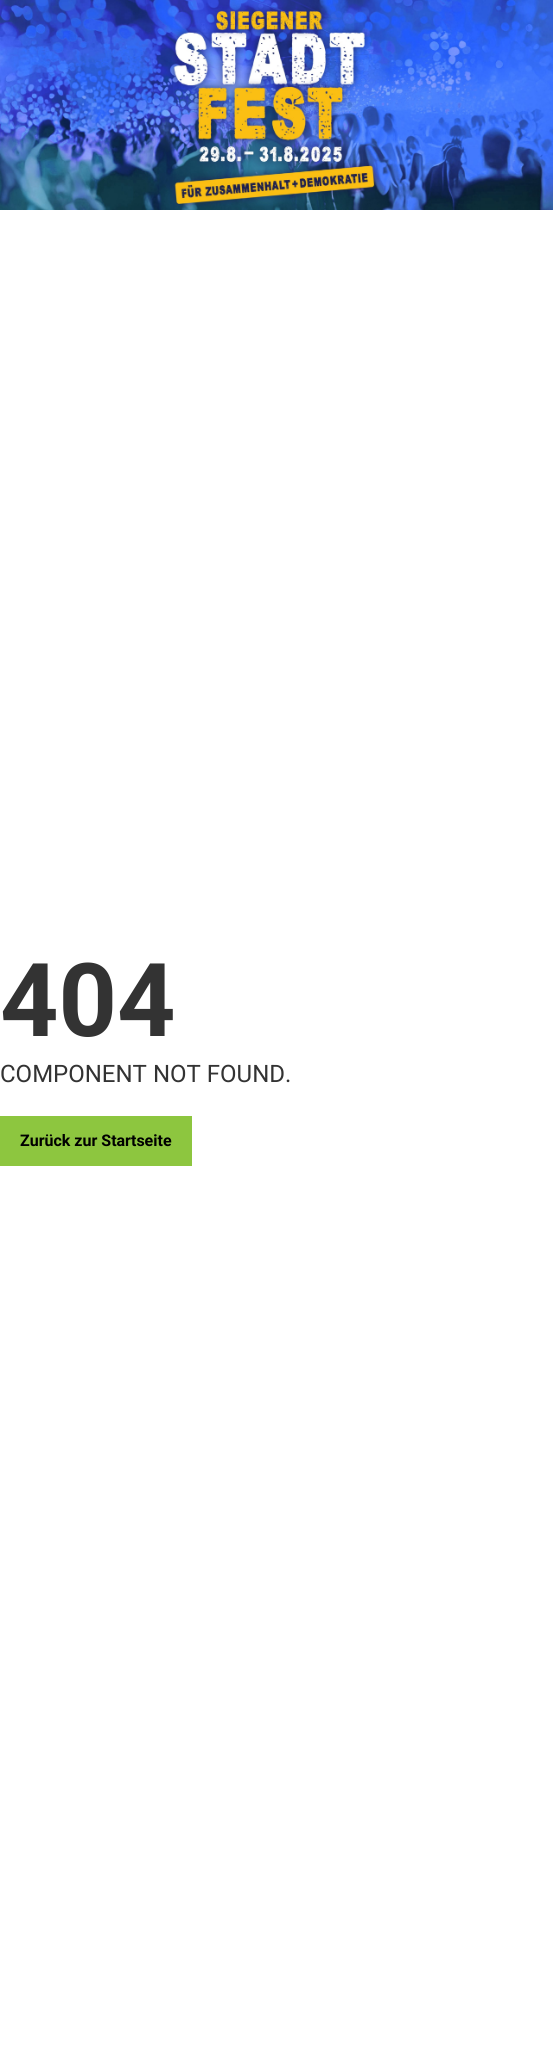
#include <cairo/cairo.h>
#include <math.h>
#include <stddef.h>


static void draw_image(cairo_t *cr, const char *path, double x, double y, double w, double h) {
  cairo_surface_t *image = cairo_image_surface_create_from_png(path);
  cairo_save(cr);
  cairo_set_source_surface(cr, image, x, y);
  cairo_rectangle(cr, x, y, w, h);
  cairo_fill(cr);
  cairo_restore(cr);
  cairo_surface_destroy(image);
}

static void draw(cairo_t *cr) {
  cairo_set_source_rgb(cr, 1, 1, 1);
  cairo_paint(cr);
  draw_image(cr, "images/1.png", 0, 0, 553, 210);
  cairo_set_source_rgb(cr, 141 / 255.0, 198 / 255.0, 63 / 255.0);
  cairo_rectangle(cr, 0, 1116, 192, 50);
  cairo_fill(cr);
  cairo_select_font_face(cr, "Roboto", CAIRO_FONT_SLANT_NORMAL, CAIRO_FONT_WEIGHT_BOLD);
  cairo_set_font_size(cr, 102);
  cairo_set_source_rgb(cr, 51 / 255.0, 51 / 255.0, 51 / 255.0);
  cairo_move_to(cr, 0, 1036);
  cairo_show_text(cr, "404");
  cairo_select_font_face(cr, "Roboto", CAIRO_FONT_SLANT_NORMAL, CAIRO_FONT_WEIGHT_NORMAL);
  cairo_set_font_size(cr, 24);
  cairo_move_to(cr, 0, 1082);
  cairo_show_text(cr, "COMPONENT NOT FOUND.");
  cairo_select_font_face(cr, "Roboto", CAIRO_FONT_SLANT_NORMAL, CAIRO_FONT_WEIGHT_BOLD);
  cairo_set_font_size(cr, 16);
  cairo_set_source_rgb(cr, 0, 0, 0);
  cairo_move_to(cr, 20, 1146);
  cairo_show_text(cr, "Zurück zur Startseite");
}

int main(void) {
  cairo_surface_t *surface = cairo_image_surface_create(CAIRO_FORMAT_RGB24, 553, 2066);
  cairo_t *cr = cairo_create(surface);
  cairo_font_options_t *options = cairo_font_options_create();
  cairo_font_options_set_hint_metrics(options, CAIRO_HINT_METRICS_OFF);
  cairo_font_options_set_hint_style(options, CAIRO_HINT_STYLE_NONE);
  cairo_set_font_options(cr, options);
  cairo_set_miter_limit(cr, 4);
  draw(cr);
  cairo_surface_write_to_png(surface, "out.png");
  cairo_font_options_destroy(options);
  cairo_destroy(cr);
  cairo_surface_destroy(surface);
  return 0;
}
